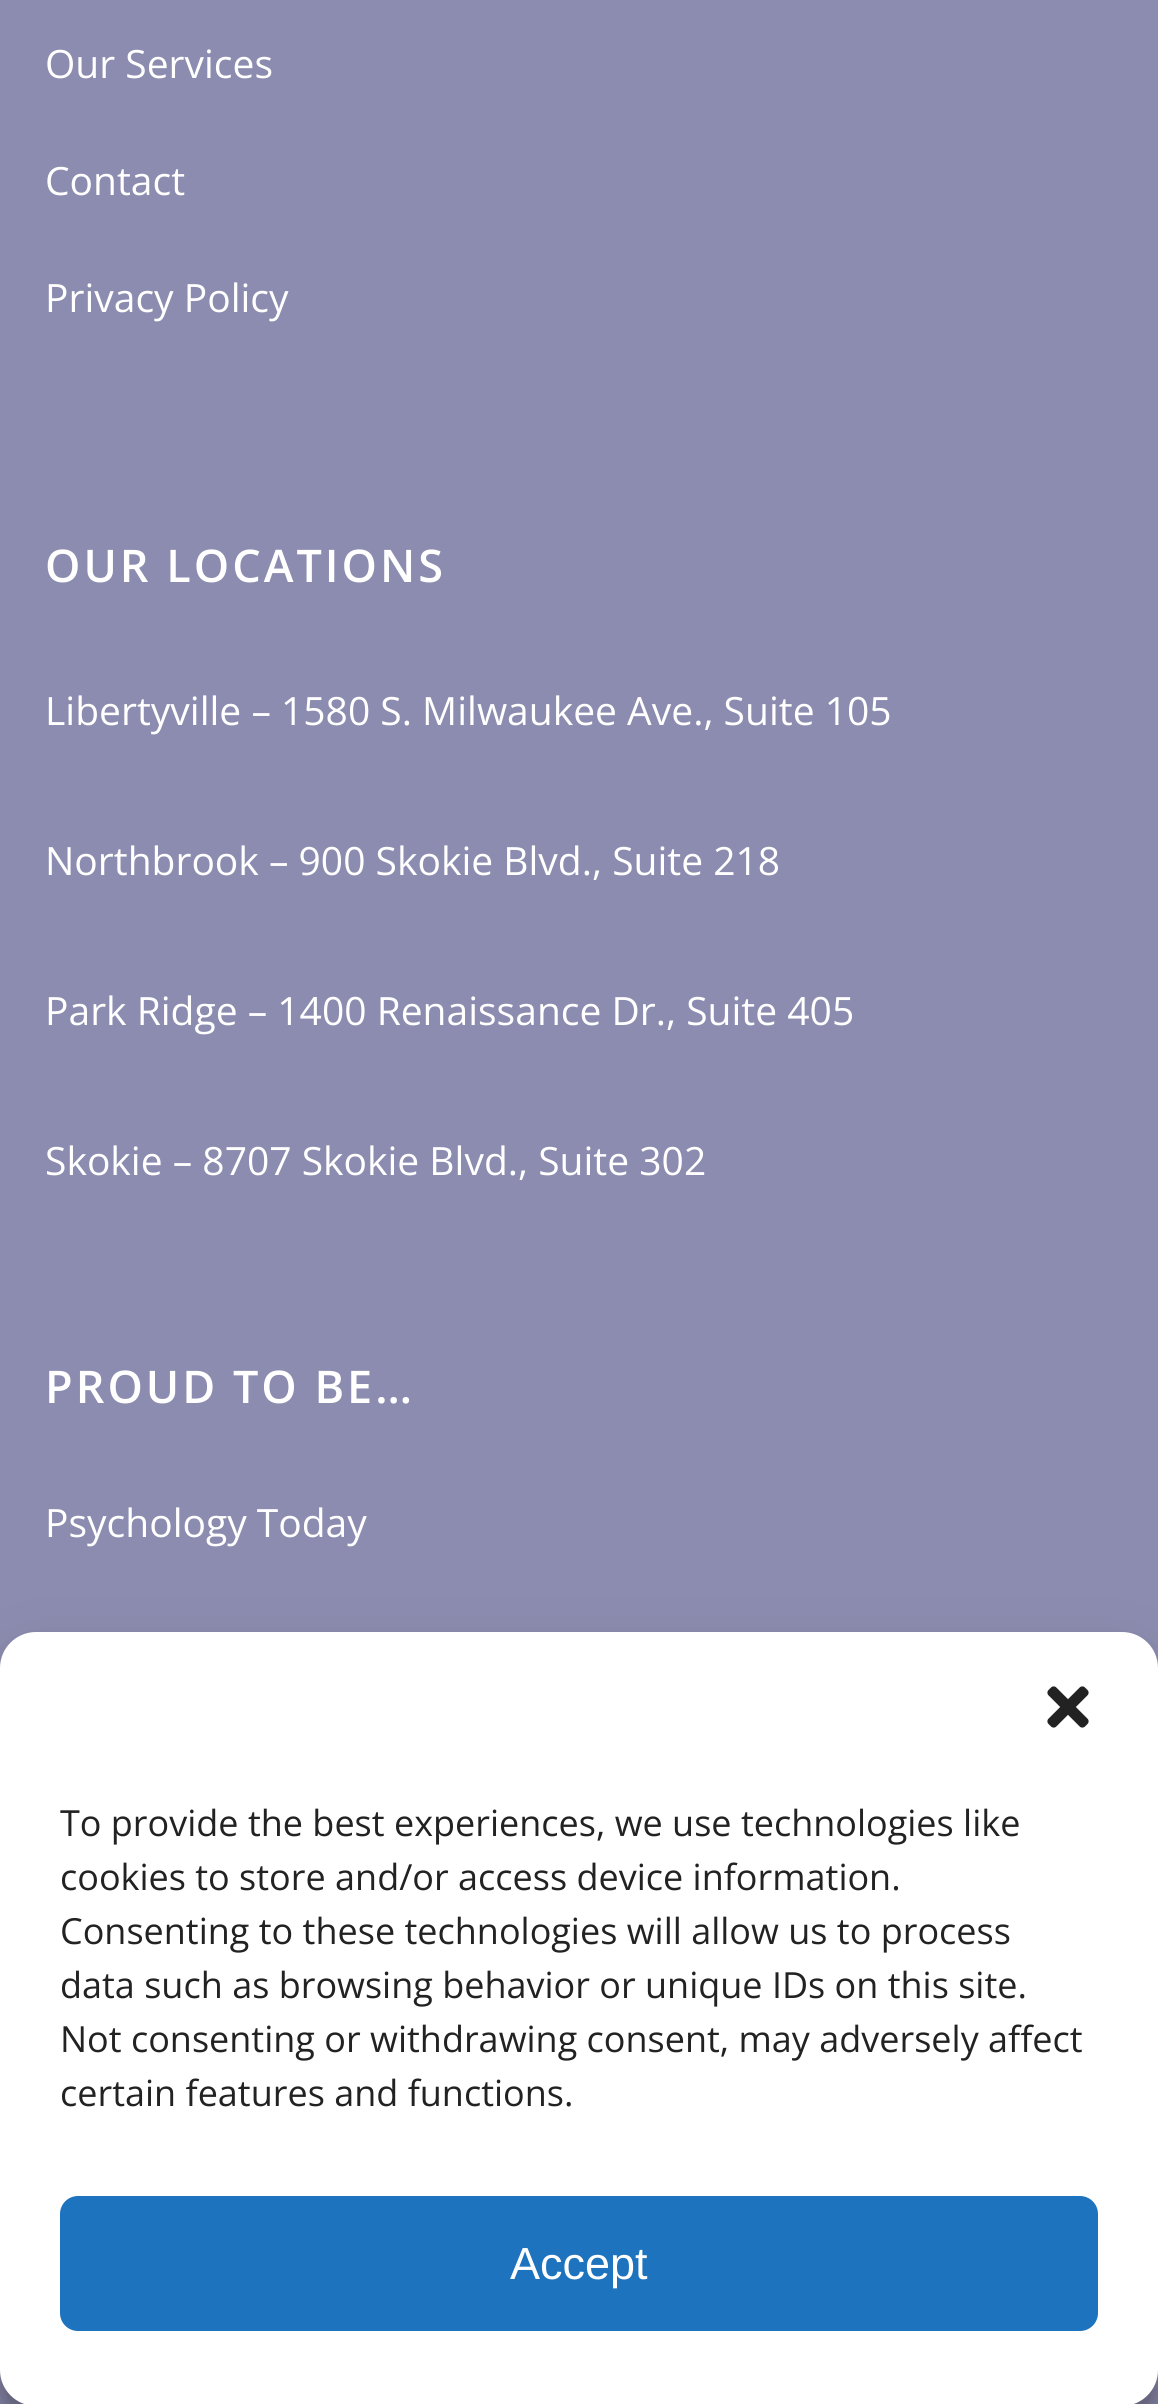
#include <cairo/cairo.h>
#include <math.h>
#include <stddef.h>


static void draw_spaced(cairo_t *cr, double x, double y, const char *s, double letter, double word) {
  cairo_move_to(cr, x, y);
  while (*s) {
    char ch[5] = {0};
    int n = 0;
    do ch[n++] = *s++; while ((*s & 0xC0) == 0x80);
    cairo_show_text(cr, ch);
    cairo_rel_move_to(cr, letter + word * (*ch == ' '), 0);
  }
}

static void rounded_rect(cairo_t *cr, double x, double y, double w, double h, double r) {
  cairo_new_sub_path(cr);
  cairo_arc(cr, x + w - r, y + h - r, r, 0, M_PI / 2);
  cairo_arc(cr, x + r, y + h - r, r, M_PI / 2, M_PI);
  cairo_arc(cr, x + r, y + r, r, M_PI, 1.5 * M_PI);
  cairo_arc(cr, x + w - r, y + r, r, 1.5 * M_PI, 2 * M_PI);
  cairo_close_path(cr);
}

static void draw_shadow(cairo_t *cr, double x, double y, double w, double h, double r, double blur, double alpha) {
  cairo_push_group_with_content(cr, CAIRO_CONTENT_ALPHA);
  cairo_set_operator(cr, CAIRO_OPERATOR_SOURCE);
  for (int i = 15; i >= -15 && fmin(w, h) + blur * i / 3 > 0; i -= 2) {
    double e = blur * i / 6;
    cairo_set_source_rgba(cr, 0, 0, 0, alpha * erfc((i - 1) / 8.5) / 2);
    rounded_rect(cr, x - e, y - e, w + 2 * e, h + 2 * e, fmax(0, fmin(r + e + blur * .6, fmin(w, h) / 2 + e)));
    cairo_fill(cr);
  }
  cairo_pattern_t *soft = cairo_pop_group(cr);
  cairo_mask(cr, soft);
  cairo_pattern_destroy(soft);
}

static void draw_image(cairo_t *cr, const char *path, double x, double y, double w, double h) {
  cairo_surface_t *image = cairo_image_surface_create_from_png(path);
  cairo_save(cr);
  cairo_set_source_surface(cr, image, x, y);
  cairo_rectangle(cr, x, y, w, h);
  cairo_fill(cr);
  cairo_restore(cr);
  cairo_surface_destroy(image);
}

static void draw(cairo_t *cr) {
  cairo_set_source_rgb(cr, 140 / 255.0, 140 / 255.0, 176 / 255.0);
  cairo_paint(cr);
  cairo_set_source_rgb(cr, 0, 0, 0);
  draw_shadow(cr, 0, 1650, 1158, 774, 36, 9, 0.23);
  draw_shadow(cr, 0, 1662, 1158, 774, 36, 30, 0.19);
  cairo_set_source_rgb(cr, 1, 1, 1);
  rounded_rect(cr, 0, 1632, 1158, 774, 36);
  cairo_fill(cr);
  draw_image(cr, "images/1.png", 1047, 1686, 42, 42);
  cairo_set_source_rgb(cr, 30 / 255.0, 115 / 255.0, 190 / 255.0);
  rounded_rect(cr, 61.5, 2197.5, 1035, 132, 16.5);
  cairo_fill_preserve(cr);
  cairo_set_line_width(cr, 3);
  cairo_stroke(cr);
  cairo_select_font_face(cr, "Open Sans", CAIRO_FONT_SLANT_NORMAL, CAIRO_FONT_WEIGHT_NORMAL);
  cairo_set_font_size(cr, 39);
  cairo_set_source_rgb(cr, 1, 1, 1);
  cairo_move_to(cr, 45, 78);
  cairo_show_text(cr, "Our Services");
  cairo_move_to(cr, 45, 195);
  cairo_show_text(cr, "Contact");
  cairo_move_to(cr, 45, 312);
  cairo_show_text(cr, "Privacy Policy");
  cairo_select_font_face(cr, "Open Sans SemiBold", CAIRO_FONT_SLANT_NORMAL, CAIRO_FONT_WEIGHT_NORMAL);
  cairo_set_font_size(cr, 45);
  draw_spaced(cr, 45, 582, "OUR LOCATIONS", 3, 0);
  cairo_select_font_face(cr, "Open Sans", CAIRO_FONT_SLANT_NORMAL, CAIRO_FONT_WEIGHT_NORMAL);
  cairo_set_font_size(cr, 39);
  cairo_move_to(cr, 45, 725);
  cairo_show_text(cr, "Libertyville – 1580 S. Milwaukee Ave., Suite 105");
  cairo_move_to(cr, 45, 875);
  cairo_show_text(cr, "Northbrook – 900 Skokie Blvd., Suite 218");
  cairo_move_to(cr, 45, 1025);
  cairo_show_text(cr, "Park Ridge – 1400 Renaissance Dr., Suite 405");
  cairo_move_to(cr, 45, 1175);
  cairo_show_text(cr, "Skokie – 8707 Skokie Blvd., Suite 302");
  cairo_select_font_face(cr, "Open Sans SemiBold", CAIRO_FONT_SLANT_NORMAL, CAIRO_FONT_WEIGHT_NORMAL);
  cairo_set_font_size(cr, 45);
  draw_spaced(cr, 45, 1403, "PROUD TO BE…", 3, 0);
  cairo_select_font_face(cr, "Open Sans", CAIRO_FONT_SLANT_NORMAL, CAIRO_FONT_WEIGHT_NORMAL);
  cairo_set_font_size(cr, 39);
  cairo_move_to(cr, 45, 1537);
  cairo_show_text(cr, "Psychology Today");
  cairo_set_font_size(cr, 36);
  cairo_set_source_rgb(cr, 34 / 255.0, 34 / 255.0, 34 / 255.0);
  cairo_move_to(cr, 60, 1836);
  cairo_show_text(cr, "To provide the best experiences, we use technologies like");
  cairo_move_to(cr, 60, 1890);
  cairo_show_text(cr, "cookies to store and/or access device information.");
  cairo_move_to(cr, 60, 1944);
  cairo_show_text(cr, "Consenting to these technologies will allow us to process");
  cairo_move_to(cr, 60, 1998);
  cairo_show_text(cr, "data such as browsing behavior or unique IDs on this site.");
  cairo_move_to(cr, 60, 2052);
  cairo_show_text(cr, "Not consenting or withdrawing consent, may adversely affect");
  cairo_move_to(cr, 60, 2106);
  cairo_show_text(cr, "certain features and functions.");
  cairo_select_font_face(cr, "Liberation Sans", CAIRO_FONT_SLANT_NORMAL, CAIRO_FONT_WEIGHT_NORMAL);
  cairo_set_font_size(cr, 45);
  cairo_set_source_rgb(cr, 1, 1, 1);
  cairo_move_to(cr, 510, 2279);
  cairo_show_text(cr, "Accept");
}

int main(void) {
  cairo_surface_t *surface = cairo_image_surface_create(CAIRO_FORMAT_RGB24, 1158, 2404);
  cairo_t *cr = cairo_create(surface);
  cairo_font_options_t *options = cairo_font_options_create();
  cairo_font_options_set_hint_metrics(options, CAIRO_HINT_METRICS_OFF);
  cairo_font_options_set_hint_style(options, CAIRO_HINT_STYLE_NONE);
  cairo_set_font_options(cr, options);
  cairo_set_miter_limit(cr, 4);
  draw(cr);
  cairo_surface_write_to_png(surface, "out.png");
  cairo_font_options_destroy(options);
  cairo_destroy(cr);
  cairo_surface_destroy(surface);
  return 0;
}
